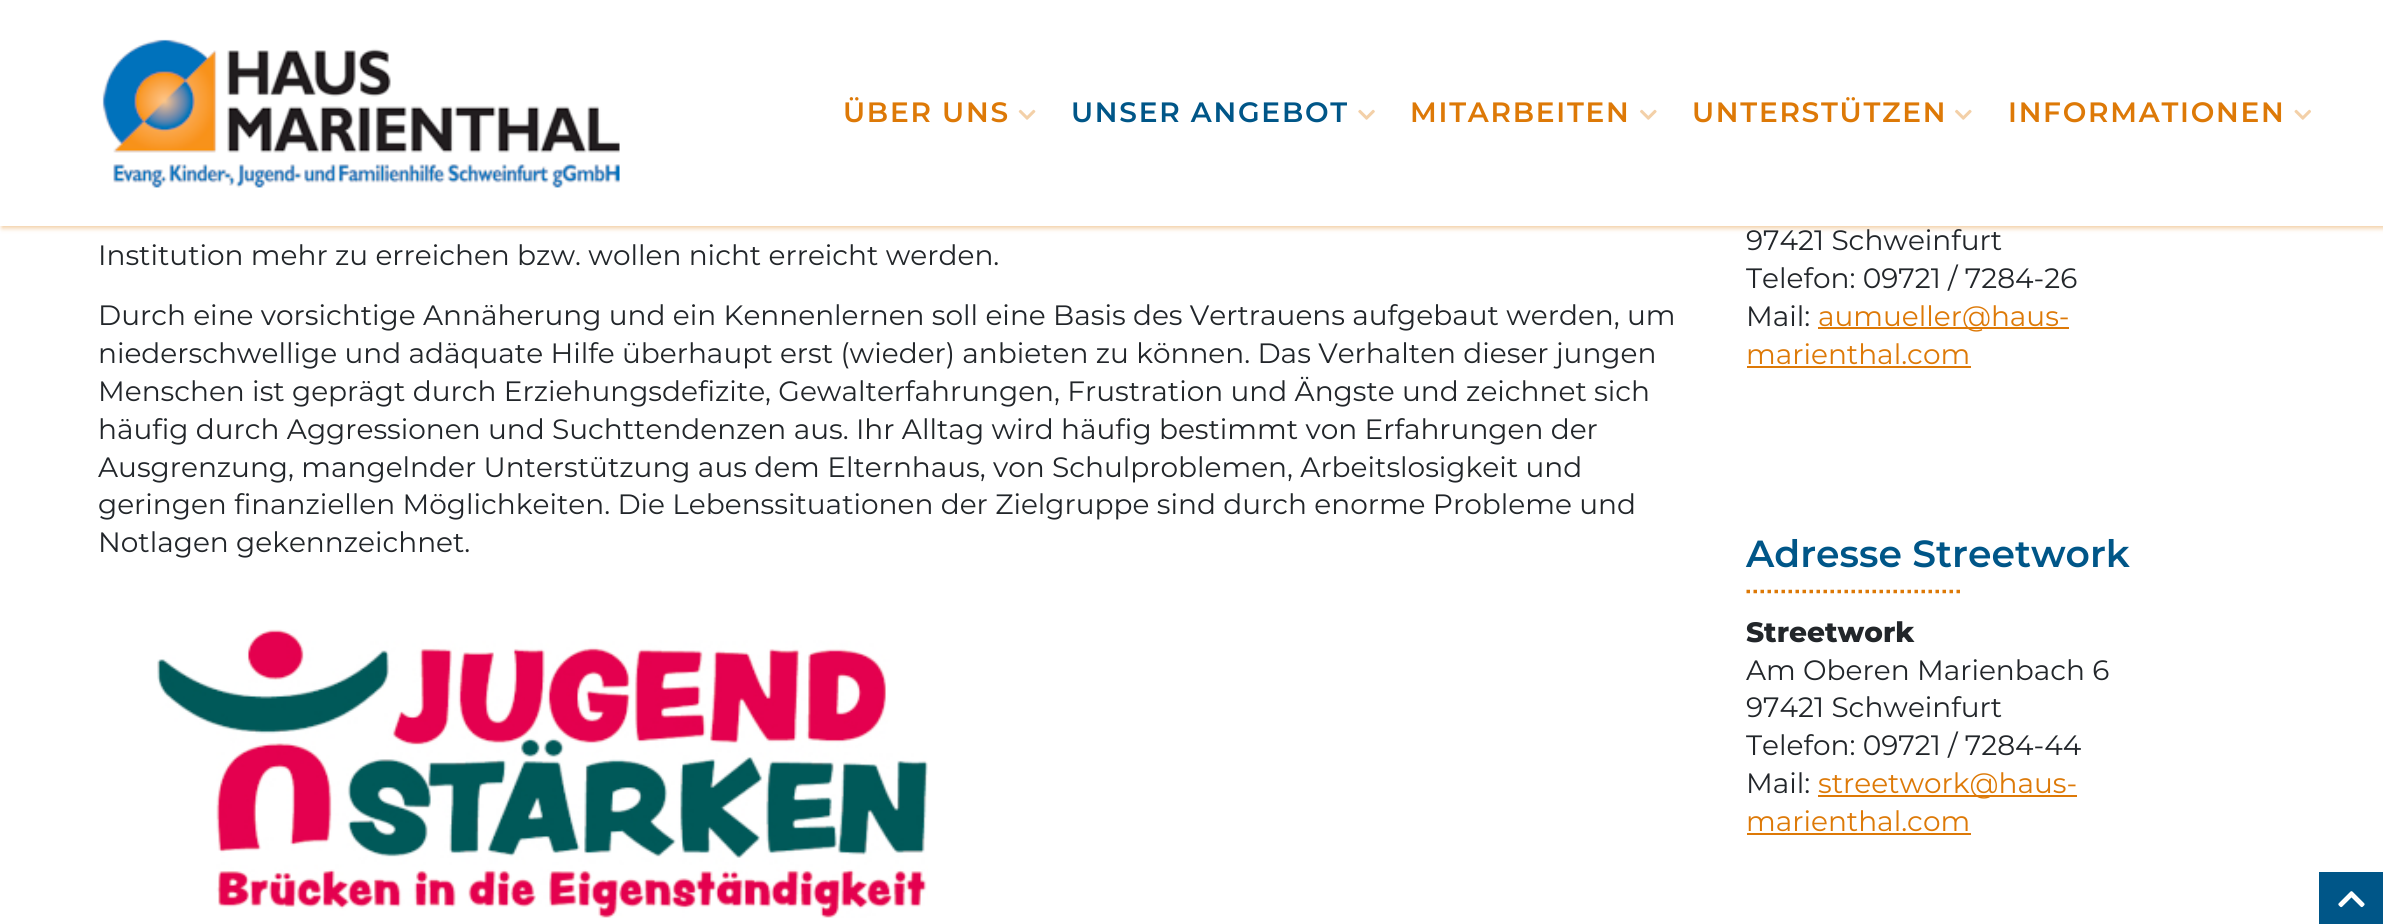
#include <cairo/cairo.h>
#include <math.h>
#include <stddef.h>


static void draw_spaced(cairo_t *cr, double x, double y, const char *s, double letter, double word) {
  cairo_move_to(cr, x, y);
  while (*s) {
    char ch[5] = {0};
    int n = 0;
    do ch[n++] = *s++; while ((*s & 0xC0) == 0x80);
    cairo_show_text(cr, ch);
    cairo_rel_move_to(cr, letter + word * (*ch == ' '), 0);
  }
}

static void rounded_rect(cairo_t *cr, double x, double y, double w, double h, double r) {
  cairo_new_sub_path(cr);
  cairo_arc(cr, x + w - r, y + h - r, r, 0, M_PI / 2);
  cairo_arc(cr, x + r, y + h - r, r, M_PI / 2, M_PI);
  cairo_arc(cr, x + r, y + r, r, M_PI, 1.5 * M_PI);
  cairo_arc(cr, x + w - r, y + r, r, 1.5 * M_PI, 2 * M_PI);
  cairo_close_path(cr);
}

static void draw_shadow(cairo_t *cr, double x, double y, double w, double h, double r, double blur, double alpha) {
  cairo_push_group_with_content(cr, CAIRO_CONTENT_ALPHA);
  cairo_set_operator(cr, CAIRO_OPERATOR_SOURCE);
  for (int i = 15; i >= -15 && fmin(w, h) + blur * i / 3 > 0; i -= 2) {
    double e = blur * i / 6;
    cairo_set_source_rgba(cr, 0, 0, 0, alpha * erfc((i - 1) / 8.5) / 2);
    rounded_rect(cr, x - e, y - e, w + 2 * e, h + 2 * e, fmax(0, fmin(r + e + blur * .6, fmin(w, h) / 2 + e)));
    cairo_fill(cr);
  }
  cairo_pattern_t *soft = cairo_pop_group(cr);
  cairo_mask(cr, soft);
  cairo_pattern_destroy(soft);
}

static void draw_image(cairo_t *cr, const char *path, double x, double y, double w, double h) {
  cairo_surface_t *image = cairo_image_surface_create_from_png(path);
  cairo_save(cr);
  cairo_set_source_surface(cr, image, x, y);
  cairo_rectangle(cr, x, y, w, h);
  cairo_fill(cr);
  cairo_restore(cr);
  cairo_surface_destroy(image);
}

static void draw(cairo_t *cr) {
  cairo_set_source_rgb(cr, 1, 1, 1);
  cairo_paint(cr);
  cairo_set_source_rgb(cr, 221 / 255.0, 121 / 255.0, 7 / 255.0);
  draw_shadow(cr, 2, 2, 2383, 226, 0, 2.5, 0.4);
  cairo_set_source_rgb(cr, 1, 1, 1);
  cairo_rectangle(cr, 0, 0, 2383, 226);
  cairo_fill(cr);
  draw_image(cr, "images/1.png", 102, 39, 518, 149);
  draw_image(cr, "images/2.png", 1018, 109, 18, 11);
  draw_image(cr, "images/3.png", 1358, 109, 17, 11);
  draw_image(cr, "images/4.png", 1640, 109, 17, 11);
  draw_image(cr, "images/4.png", 1955, 109, 17, 11);
  draw_image(cr, "images/5.png", 2294, 109, 17, 11);
  draw_image(cr, "images/6.png", 157, 629, 771, 289);
  cairo_set_source_rgb(cr, 221 / 255.0, 121 / 255.0, 7 / 255.0);
  cairo_rectangle(cr, 1818, 327, 251, 2);
  cairo_fill(cr);
  cairo_rectangle(cr, 1747, 366, 224, 2);
  cairo_fill(cr);
  cairo_new_path(cr);
  cairo_move_to(cr, 1746.5, 591.5);
  cairo_line_to(cr, 1962, 591.5);
  cairo_set_line_width(cr, 3.5);
  cairo_set_dash(cr, (double[]){3.5, 3.5}, 2, 0);
  cairo_stroke(cr);
  cairo_rectangle(cr, 1818, 795, 259, 2);
  cairo_fill(cr);
  cairo_rectangle(cr, 1747, 833, 224, 2);
  cairo_fill(cr);
  cairo_set_source_rgb(cr, 0, 86 / 255.0, 136 / 255.0);
  cairo_rectangle(cr, 2319, 872, 64, 52);
  cairo_fill(cr);
  draw_image(cr, "images/7.png", 2338, 891, 27, 17);
  cairo_select_font_face(cr, "Montserrat SemiBold", CAIRO_FONT_SLANT_NORMAL, CAIRO_FONT_WEIGHT_NORMAL);
  cairo_set_font_size(cr, 28);
  cairo_set_source_rgb(cr, 221 / 255.0, 121 / 255.0, 7 / 255.0);
  draw_spaced(cr, 843, 122, "ÜBER UNS", 1.75, 0);
  cairo_set_source_rgb(cr, 0, 86 / 255.0, 136 / 255.0);
  draw_spaced(cr, 1071, 122, "UNSER ANGEBOT", 1.75, 0);
  cairo_set_source_rgb(cr, 221 / 255.0, 121 / 255.0, 7 / 255.0);
  draw_spaced(cr, 1410, 122, "MITARBEITEN", 1.75, 0);
  draw_spaced(cr, 1692, 122, "UNTERSTÜTZEN", 1.75, 0);
  draw_spaced(cr, 2008, 122, "INFORMATIONEN", 1.75, 0);
  cairo_select_font_face(cr, "Montserrat", CAIRO_FONT_SLANT_NORMAL, CAIRO_FONT_WEIGHT_NORMAL);
  cairo_set_source_rgb(cr, 34 / 255.0, 38 / 255.0, 42 / 255.0);
  cairo_move_to(cr, 98, 265);
  cairo_show_text(cr, "Institution mehr zu erreichen bzw. wollen nicht erreicht werden.");
  cairo_move_to(cr, 98, 325);
  cairo_show_text(cr, "Durch eine vorsichtige Annäherung und ein Kennenlernen soll eine Basis des Vertrauens aufgebaut werden, um");
  cairo_move_to(cr, 98, 363);
  cairo_show_text(cr, "niederschwellige und adäquate Hilfe überhaupt erst (wieder) anbieten zu können. Das Verhalten dieser jungen");
  cairo_move_to(cr, 98, 401);
  cairo_show_text(cr, "Menschen ist geprägt durch Erziehungsdefizite, Gewalterfahrungen, Frustration und Ängste und zeichnet sich");
  cairo_move_to(cr, 98, 439);
  cairo_show_text(cr, "häufig durch Aggressionen und Suchttendenzen aus. Ihr Alltag wird häufig bestimmt von Erfahrungen der");
  cairo_move_to(cr, 98, 477);
  cairo_show_text(cr, "Ausgrenzung, mangelnder Unterstützung aus dem Elternhaus, von Schulproblemen, Arbeitslosigkeit und");
  cairo_move_to(cr, 98, 514);
  cairo_show_text(cr, "geringen finanziellen Möglichkeiten. Die Lebenssituationen der Zielgruppe sind durch enorme Probleme und");
  cairo_move_to(cr, 98, 552);
  cairo_show_text(cr, "Notlagen gekennzeichnet.");
  cairo_move_to(cr, 1746, 250);
  cairo_show_text(cr, "97421 Schweinfurt");
  cairo_move_to(cr, 1746, 288);
  cairo_show_text(cr, "Telefon: 09721 / 7284-26");
  cairo_move_to(cr, 1746, 326);
  cairo_show_text(cr, "Mail:");
  cairo_set_source_rgb(cr, 221 / 255.0, 121 / 255.0, 7 / 255.0);
  cairo_move_to(cr, 1818, 326);
  cairo_show_text(cr, "aumueller@haus-");
  cairo_move_to(cr, 1746, 364);
  cairo_show_text(cr, "marienthal.com");
  cairo_select_font_face(cr, "Montserrat SemiBold", CAIRO_FONT_SLANT_NORMAL, CAIRO_FONT_WEIGHT_NORMAL);
  cairo_set_font_size(cr, 37.75);
  cairo_set_source_rgb(cr, 0, 86 / 255.0, 136 / 255.0);
  cairo_move_to(cr, 1746, 567);
  cairo_show_text(cr, "Adresse Streetwork");
  cairo_select_font_face(cr, "Montserrat ExtraBold", CAIRO_FONT_SLANT_NORMAL, CAIRO_FONT_WEIGHT_NORMAL);
  cairo_set_font_size(cr, 28);
  cairo_set_source_rgb(cr, 34 / 255.0, 38 / 255.0, 42 / 255.0);
  cairo_move_to(cr, 1746, 642);
  cairo_show_text(cr, "Streetwork");
  cairo_select_font_face(cr, "Montserrat", CAIRO_FONT_SLANT_NORMAL, CAIRO_FONT_WEIGHT_NORMAL);
  cairo_move_to(cr, 1746, 680);
  cairo_show_text(cr, "Am Oberen Marienbach 6");
  cairo_move_to(cr, 1746, 717);
  cairo_show_text(cr, "97421 Schweinfurt");
  cairo_move_to(cr, 1746, 755);
  cairo_show_text(cr, "Telefon: 09721 / 7284-44");
  cairo_move_to(cr, 1746, 793);
  cairo_show_text(cr, "Mail:");
  cairo_set_source_rgb(cr, 221 / 255.0, 121 / 255.0, 7 / 255.0);
  cairo_move_to(cr, 1818, 793);
  cairo_show_text(cr, "streetwork@haus-");
  cairo_move_to(cr, 1746, 831);
  cairo_show_text(cr, "marienthal.com");
}

int main(void) {
  cairo_surface_t *surface = cairo_image_surface_create(CAIRO_FORMAT_RGB24, 2383, 924);
  cairo_t *cr = cairo_create(surface);
  cairo_font_options_t *options = cairo_font_options_create();
  cairo_font_options_set_hint_metrics(options, CAIRO_HINT_METRICS_OFF);
  cairo_font_options_set_hint_style(options, CAIRO_HINT_STYLE_NONE);
  cairo_set_font_options(cr, options);
  cairo_set_miter_limit(cr, 4);
  draw(cr);
  cairo_surface_write_to_png(surface, "out.png");
  cairo_font_options_destroy(options);
  cairo_destroy(cr);
  cairo_surface_destroy(surface);
  return 0;
}
